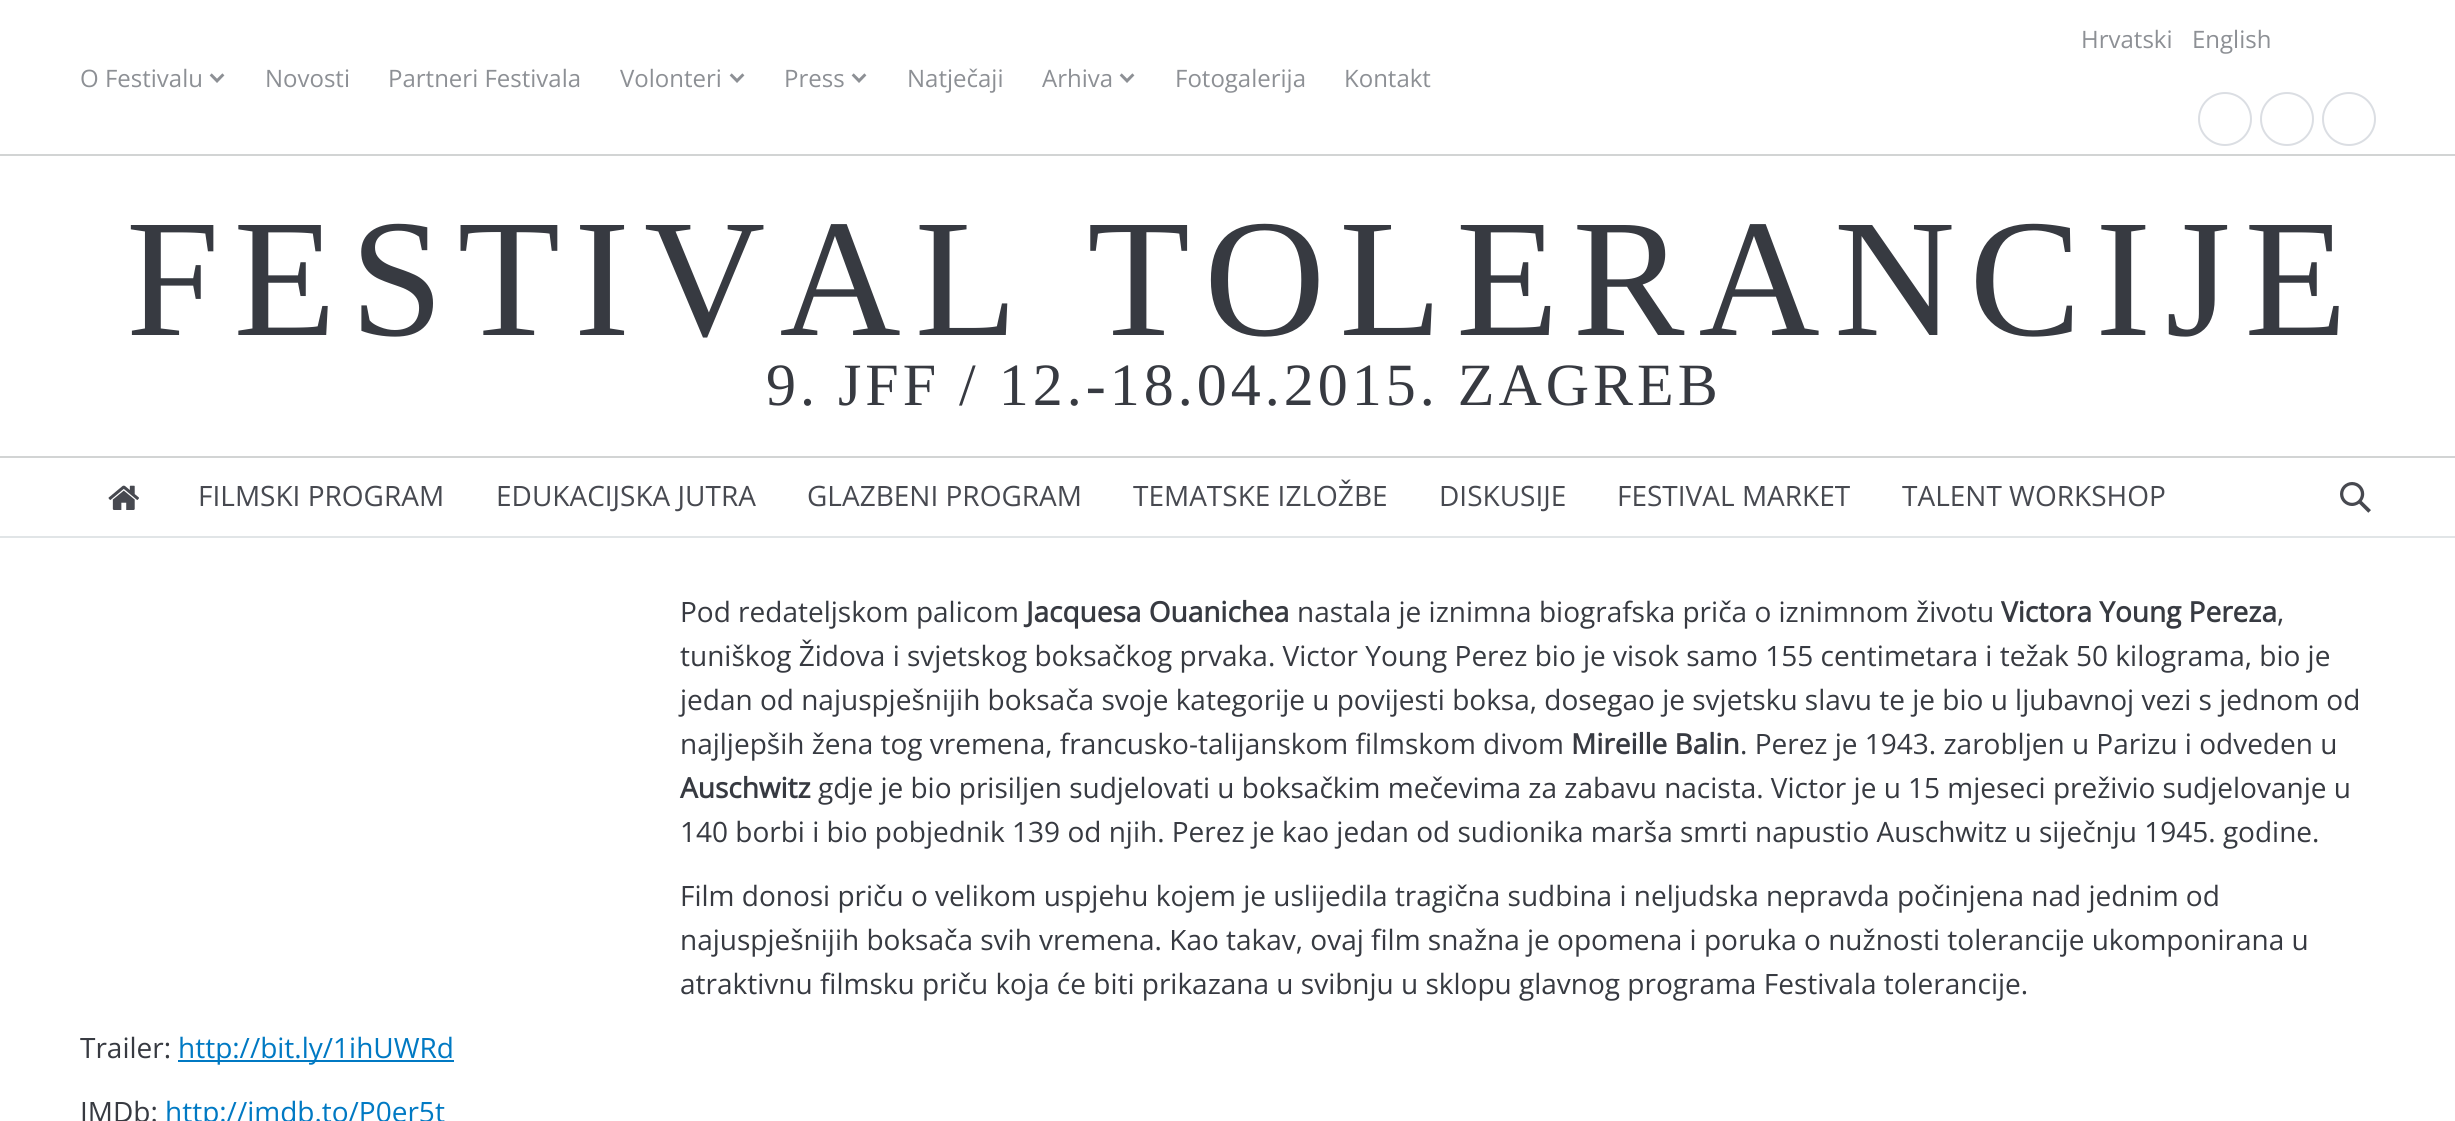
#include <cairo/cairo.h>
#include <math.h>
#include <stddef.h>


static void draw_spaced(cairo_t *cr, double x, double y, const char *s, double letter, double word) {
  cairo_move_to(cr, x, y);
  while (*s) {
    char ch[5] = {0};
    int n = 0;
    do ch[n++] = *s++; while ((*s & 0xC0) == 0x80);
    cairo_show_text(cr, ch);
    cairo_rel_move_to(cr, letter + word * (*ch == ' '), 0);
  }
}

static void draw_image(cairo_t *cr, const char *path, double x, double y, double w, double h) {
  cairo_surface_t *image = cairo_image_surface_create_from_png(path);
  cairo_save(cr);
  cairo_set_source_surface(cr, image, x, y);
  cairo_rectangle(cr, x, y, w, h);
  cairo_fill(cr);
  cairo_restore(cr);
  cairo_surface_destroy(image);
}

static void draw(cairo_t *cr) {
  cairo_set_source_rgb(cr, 1, 1, 1);
  cairo_paint(cr);
  cairo_arc(cr, 2225, 119, 26, 0, 2 * M_PI);
  cairo_set_source_rgb(cr, 219 / 255.0, 222 / 255.0, 227 / 255.0);
  cairo_stroke(cr);
  cairo_arc(cr, 2287, 119, 26, 0, 2 * M_PI);
  cairo_stroke(cr);
  cairo_arc(cr, 2349, 119, 26, 0, 2 * M_PI);
  cairo_stroke(cr);
  draw_image(cr, "images/1.png", 209, 73, 16, 10);
  draw_image(cr, "images/1.png", 729, 73, 16, 10);
  draw_image(cr, "images/1.png", 851, 73, 16, 10);
  draw_image(cr, "images/1.png", 1119, 73, 16, 10);
  cairo_set_source_rgb(cr, 210 / 255.0, 212 / 255.0, 212 / 255.0);
  cairo_rectangle(cr, 0, 154, 2455, 2);
  cairo_fill(cr);
  cairo_set_source_rgb(cr, 225 / 255.0, 229 / 255.0, 231 / 255.0);
  cairo_rectangle(cr, 0, 536, 2455, 2);
  cairo_fill(cr);
  cairo_set_source_rgb(cr, 210 / 255.0, 212 / 255.0, 212 / 255.0);
  cairo_rectangle(cr, 0, 456, 2455, 2);
  cairo_fill(cr);
  draw_image(cr, "images/2.png", 108, 485, 31, 25);
  draw_image(cr, "images/3.png", 2340, 482, 31, 31);
  cairo_set_source_rgb(cr, 0, 121 / 255.0, 195 / 255.0);
  cairo_rectangle(cr, 178, 1060, 276, 2);
  cairo_fill(cr);
  cairo_select_font_face(cr, "Open Sans", CAIRO_FONT_SLANT_NORMAL, CAIRO_FONT_WEIGHT_NORMAL);
  cairo_set_font_size(cr, 24);
  cairo_set_source_rgb(cr, 141 / 255.0, 144 / 255.0, 149 / 255.0);
  cairo_move_to(cr, 2081, 48);
  cairo_show_text(cr, "Hrvatski");
  cairo_move_to(cr, 2192, 48);
  cairo_show_text(cr, "English");
  cairo_move_to(cr, 80, 87);
  cairo_show_text(cr, "O Festivalu");
  cairo_move_to(cr, 265, 87);
  cairo_show_text(cr, "Novosti");
  cairo_move_to(cr, 388, 87);
  cairo_show_text(cr, "Partneri Festivala");
  cairo_move_to(cr, 620, 87);
  cairo_show_text(cr, "Volonteri");
  cairo_move_to(cr, 784, 87);
  cairo_show_text(cr, "Press");
  cairo_move_to(cr, 907, 87);
  cairo_show_text(cr, "Natječaji");
  cairo_move_to(cr, 1042, 87);
  cairo_show_text(cr, "Arhiva");
  cairo_move_to(cr, 1175, 87);
  cairo_show_text(cr, "Fotogalerija");
  cairo_move_to(cr, 1344, 87);
  cairo_show_text(cr, "Kontakt");
  cairo_select_font_face(cr, "Liberation Serif", CAIRO_FONT_SLANT_NORMAL, CAIRO_FONT_WEIGHT_NORMAL);
  cairo_set_font_size(cr, 168);
  cairo_set_source_rgb(cr, 55 / 255.0, 58 / 255.0, 65 / 255.0);
  draw_spaced(cr, 126, 335, "FESTIVAL TOLERANCIJE", 14, 0);
  cairo_set_font_size(cr, 60);
  draw_spaced(cr, 766, 405, "9. JFF / 12.-18.04.2015. ZAGREB", 4, 0);
  cairo_select_font_face(cr, "Open Sans", CAIRO_FONT_SLANT_NORMAL, CAIRO_FONT_WEIGHT_NORMAL);
  cairo_set_font_size(cr, 28);
  cairo_set_source_rgb(cr, 71 / 255.0, 73 / 255.0, 80 / 255.0);
  cairo_move_to(cr, 198, 506);
  cairo_show_text(cr, "FILMSKI PROGRAM");
  cairo_move_to(cr, 496, 506);
  cairo_show_text(cr, "EDUKACIJSKA JUTRA");
  cairo_move_to(cr, 807, 506);
  cairo_show_text(cr, "GLAZBENI PROGRAM");
  cairo_move_to(cr, 1133, 506);
  cairo_show_text(cr, "TEMATSKE IZLOŽBE");
  cairo_move_to(cr, 1439, 506);
  cairo_show_text(cr, "DISKUSIJE");
  cairo_move_to(cr, 1617, 506);
  cairo_show_text(cr, "FESTIVAL MARKET");
  cairo_move_to(cr, 1902, 506);
  cairo_show_text(cr, "TALENT WORKSHOP");
  cairo_set_source_rgb(cr, 55 / 255.0, 58 / 255.0, 65 / 255.0);
  cairo_move_to(cr, 680, 622);
  cairo_show_text(cr, "Pod redateljskom palicom");
  cairo_select_font_face(cr, "Open Sans", CAIRO_FONT_SLANT_NORMAL, CAIRO_FONT_WEIGHT_BOLD);
  cairo_move_to(cr, 1026, 622);
  cairo_show_text(cr, "Jacquesa Ouanichea");
  cairo_select_font_face(cr, "Open Sans", CAIRO_FONT_SLANT_NORMAL, CAIRO_FONT_WEIGHT_NORMAL);
  cairo_move_to(cr, 1297, 622);
  cairo_show_text(cr, "nastala je iznimna biografska priča o iznimnom životu");
  cairo_select_font_face(cr, "Open Sans", CAIRO_FONT_SLANT_NORMAL, CAIRO_FONT_WEIGHT_BOLD);
  cairo_move_to(cr, 2001, 622);
  cairo_show_text(cr, "Victora Young Pereza");
  cairo_select_font_face(cr, "Open Sans", CAIRO_FONT_SLANT_NORMAL, CAIRO_FONT_WEIGHT_NORMAL);
  cairo_move_to(cr, 2277, 622);
  cairo_show_text(cr, ",");
  cairo_move_to(cr, 680, 666);
  cairo_show_text(cr, "tuniškog Židova i svjetskog boksačkog prvaka. Victor Young Perez bio je visok samo 155 centimetara i težak 50 kilograma, bio je");
  cairo_move_to(cr, 680, 710);
  cairo_show_text(cr, "jedan od najuspješnijih boksača svoje kategorije u povijesti boksa, dosegao je svjetsku slavu te je bio u ljubavnoj vezi s jednom od");
  cairo_move_to(cr, 680, 754);
  cairo_show_text(cr, "najljepših žena tog vremena, francusko-talijanskom filmskom divom");
  cairo_select_font_face(cr, "Open Sans", CAIRO_FONT_SLANT_NORMAL, CAIRO_FONT_WEIGHT_BOLD);
  cairo_move_to(cr, 1571, 754);
  cairo_show_text(cr, "Mireille Balin");
  cairo_select_font_face(cr, "Open Sans", CAIRO_FONT_SLANT_NORMAL, CAIRO_FONT_WEIGHT_NORMAL);
  cairo_move_to(cr, 1740, 754);
  cairo_show_text(cr, ". Perez je 1943. zarobljen u Parizu i odveden u");
  cairo_select_font_face(cr, "Open Sans", CAIRO_FONT_SLANT_NORMAL, CAIRO_FONT_WEIGHT_BOLD);
  cairo_move_to(cr, 680, 798);
  cairo_show_text(cr, "Auschwitz");
  cairo_select_font_face(cr, "Open Sans", CAIRO_FONT_SLANT_NORMAL, CAIRO_FONT_WEIGHT_NORMAL);
  cairo_move_to(cr, 818, 798);
  cairo_show_text(cr, "gdje je bio prisiljen sudjelovati u boksačkim mečevima za zabavu nacista. Victor je u 15 mjeseci preživio sudjelovanje u");
  cairo_move_to(cr, 680, 842);
  cairo_show_text(cr, "140 borbi i bio pobjednik 139 od njih. Perez je kao jedan od sudionika marša smrti napustio Auschwitz u siječnju 1945. godine.");
  cairo_move_to(cr, 680, 906);
  cairo_show_text(cr, "Film donosi priču o velikom uspjehu kojem je uslijedila tragična sudbina i neljudska nepravda počinjena nad jednim od");
  cairo_move_to(cr, 680, 950);
  cairo_show_text(cr, "najuspješnijih boksača svih vremena. Kao takav, ovaj film snažna je opomena i poruka o nužnosti tolerancije ukomponirana u");
  cairo_move_to(cr, 680, 994);
  cairo_show_text(cr, "atraktivnu filmsku priču koja će biti prikazana u svibnju u sklopu glavnog programa Festivala tolerancije.");
  cairo_move_to(cr, 80, 1058);
  cairo_show_text(cr, "Trailer:");
  cairo_set_source_rgb(cr, 0, 121 / 255.0, 195 / 255.0);
  cairo_move_to(cr, 178, 1058);
  cairo_show_text(cr, "http://bit.ly/1ihUWRd");
  cairo_set_source_rgb(cr, 55 / 255.0, 58 / 255.0, 65 / 255.0);
  cairo_move_to(cr, 80, 1122);
  cairo_show_text(cr, "IMDb:");
  cairo_set_source_rgb(cr, 0, 121 / 255.0, 195 / 255.0);
  cairo_move_to(cr, 165, 1122);
  cairo_show_text(cr, "http://imdb.to/P0er5t");
}

int main(void) {
  cairo_surface_t *surface = cairo_image_surface_create(CAIRO_FORMAT_RGB24, 2455, 1121);
  cairo_t *cr = cairo_create(surface);
  cairo_font_options_t *options = cairo_font_options_create();
  cairo_font_options_set_hint_metrics(options, CAIRO_HINT_METRICS_OFF);
  cairo_font_options_set_hint_style(options, CAIRO_HINT_STYLE_NONE);
  cairo_set_font_options(cr, options);
  cairo_set_miter_limit(cr, 4);
  draw(cr);
  cairo_surface_write_to_png(surface, "out.png");
  cairo_font_options_destroy(options);
  cairo_destroy(cr);
  cairo_surface_destroy(surface);
  return 0;
}
